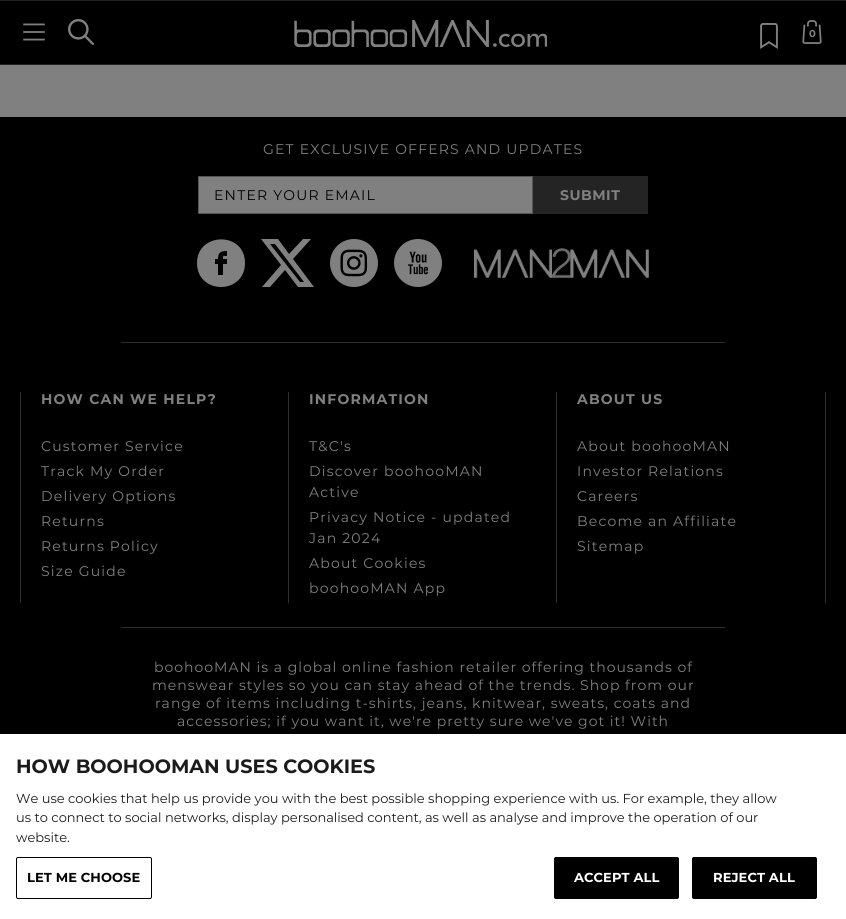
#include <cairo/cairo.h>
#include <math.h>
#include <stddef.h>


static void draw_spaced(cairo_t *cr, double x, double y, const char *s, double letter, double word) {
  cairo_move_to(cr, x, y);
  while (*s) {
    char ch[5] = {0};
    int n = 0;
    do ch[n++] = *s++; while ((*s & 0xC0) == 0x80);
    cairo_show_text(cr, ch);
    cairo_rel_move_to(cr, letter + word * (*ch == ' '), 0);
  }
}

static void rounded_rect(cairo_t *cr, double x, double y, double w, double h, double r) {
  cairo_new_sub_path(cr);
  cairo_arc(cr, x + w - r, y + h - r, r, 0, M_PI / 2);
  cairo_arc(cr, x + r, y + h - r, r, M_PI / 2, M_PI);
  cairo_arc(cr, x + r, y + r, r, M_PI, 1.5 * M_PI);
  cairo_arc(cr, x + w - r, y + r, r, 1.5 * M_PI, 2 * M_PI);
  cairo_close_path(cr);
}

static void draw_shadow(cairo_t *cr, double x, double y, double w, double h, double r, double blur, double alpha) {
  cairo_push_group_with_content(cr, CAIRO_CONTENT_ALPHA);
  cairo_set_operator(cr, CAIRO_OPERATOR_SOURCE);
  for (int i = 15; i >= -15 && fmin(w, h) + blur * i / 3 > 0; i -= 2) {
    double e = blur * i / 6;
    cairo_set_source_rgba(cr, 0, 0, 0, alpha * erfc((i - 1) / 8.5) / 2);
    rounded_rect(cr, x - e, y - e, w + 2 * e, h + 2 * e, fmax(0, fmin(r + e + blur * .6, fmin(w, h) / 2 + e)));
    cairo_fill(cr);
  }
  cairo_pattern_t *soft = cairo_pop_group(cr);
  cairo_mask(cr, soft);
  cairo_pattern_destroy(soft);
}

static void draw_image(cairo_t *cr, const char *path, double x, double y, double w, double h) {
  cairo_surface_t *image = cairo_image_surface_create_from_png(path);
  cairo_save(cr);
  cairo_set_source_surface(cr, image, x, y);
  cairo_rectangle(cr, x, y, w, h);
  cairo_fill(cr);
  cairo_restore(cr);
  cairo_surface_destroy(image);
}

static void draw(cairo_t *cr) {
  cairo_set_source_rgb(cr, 128 / 255.0, 128 / 255.0, 128 / 255.0);
  cairo_paint(cr);
  cairo_set_source_rgb(cr, 0, 0, 0);
  cairo_rectangle(cr, 0, 1, 846, 63);
  cairo_fill(cr);
  cairo_set_source_rgb(cr, 33 / 255.0, 33 / 255.0, 33 / 255.0);
  cairo_rectangle(cr, 0, 0, 846, 1);
  cairo_fill(cr);
  cairo_rectangle(cr, 0, 64, 846, 1);
  cairo_fill(cr);
  draw_image(cr, "images/1.png", 23, 23, 22, 18);
  draw_image(cr, "images/2.png", 68, 19, 26, 26);
  draw_image(cr, "images/3.png", 294, 20, 253, 27);
  draw_image(cr, "images/4.png", 760, 23, 18, 26);
  draw_image(cr, "images/5.png", 802, 20, 20, 24);
  cairo_set_source_rgb(cr, 0, 0, 0);
  cairo_rectangle(cr, 0, 117, 846, 617);
  cairo_fill(cr);
  cairo_set_source_rgb(cr, 128 / 255.0, 128 / 255.0, 128 / 255.0);
  cairo_rectangle(cr, 198.5, 176.5, 334, 37);
  cairo_fill_preserve(cr);
  cairo_set_source_rgb(cr, 85 / 255.0, 85 / 255.0, 85 / 255.0);
  cairo_set_line_width(cr, 1);
  cairo_stroke(cr);
  cairo_set_source_rgb(cr, 36 / 255.0, 36 / 255.0, 36 / 255.0);
  cairo_rectangle(cr, 533, 176, 115, 38);
  cairo_fill(cr);
  cairo_set_source_rgb(cr, 128 / 255.0, 128 / 255.0, 128 / 255.0);
  cairo_new_path(cr);
  cairo_move_to(cr, 197, 263);
  cairo_curve_to(cr, 197, 232, 245, 231, 245, 263);
  cairo_curve_to(cr, 245, 295, 197, 295, 197, 263);
  cairo_close_path(cr);
  cairo_move_to(cr, 215, 264);
  cairo_line_to(cr, 218, 264);
  cairo_line_to(cr, 218, 275);
  cairo_line_to(cr, 223, 275);
  cairo_line_to(cr, 223, 264);
  cairo_line_to(cr, 227, 264);
  cairo_line_to(cr, 227, 259);
  cairo_line_to(cr, 223, 259);
  cairo_curve_to(cr, 223, 255, 223, 256, 227, 256);
  cairo_line_to(cr, 227, 251);
  cairo_curve_to(cr, 220, 251, 218, 253, 218, 259);
  cairo_line_to(cr, 215, 259);
  cairo_close_path(cr);
  cairo_fill(cr);
  cairo_new_path(cr);
  cairo_move_to(cr, 303, 239);
  cairo_line_to(cr, 311, 239);
  cairo_line_to(cr, 293, 259);
  cairo_line_to(cr, 314, 287);
  cairo_line_to(cr, 298, 287);
  cairo_line_to(cr, 285, 270);
  cairo_line_to(cr, 270, 287);
  cairo_line_to(cr, 262, 287);
  cairo_line_to(cr, 281, 265);
  cairo_line_to(cr, 261, 239);
  cairo_line_to(cr, 278, 239);
  cairo_line_to(cr, 289, 254);
  cairo_close_path(cr);
  cairo_move_to(cr, 300, 282);
  cairo_line_to(cr, 304, 282);
  cairo_line_to(cr, 275, 244);
  cairo_line_to(cr, 270, 244);
  cairo_close_path(cr);
  cairo_fill(cr);
  draw_image(cr, "images/6.png", 330, 239, 48, 48);
  draw_image(cr, "images/7.png", 394, 239, 48, 48);
  draw_image(cr, "images/8.png", 474, 248, 175, 30);
  cairo_set_source_rgb(cr, 47 / 255.0, 47 / 255.0, 47 / 255.0);
  cairo_rectangle(cr, 121, 342, 604, 1);
  cairo_fill(cr);
  cairo_rectangle(cr, 288, 392, 1, 211);
  cairo_fill(cr);
  cairo_rectangle(cr, 20, 392, 1, 211);
  cairo_fill(cr);
  cairo_rectangle(cr, 556, 392, 1, 211);
  cairo_fill(cr);
  cairo_rectangle(cr, 825, 392, 1, 211);
  cairo_fill(cr);
  cairo_rectangle(cr, 121, 627, 604, 1);
  cairo_fill(cr);
  cairo_set_source_rgb(cr, 0, 0, 0);
  draw_shadow(cr, 0, 734, 846, 185, 0, 9, 0.2);
  cairo_set_source_rgb(cr, 1, 1, 1);
  cairo_rectangle(cr, 0, 734, 846, 185);
  cairo_fill(cr);
  rounded_rect(cr, 16.5, 857.5, 135, 41, 1.5);
  cairo_set_source_rgb(cr, 0, 0, 0);
  cairo_stroke(cr);
  rounded_rect(cr, 554.5, 857.5, 124, 41, 1.5);
  cairo_fill_preserve(cr);
  cairo_stroke(cr);
  rounded_rect(cr, 692.5, 857.5, 124, 41, 1.5);
  cairo_fill_preserve(cr);
  cairo_stroke(cr);
  cairo_select_font_face(cr, "Montserrat", CAIRO_FONT_SLANT_NORMAL, CAIRO_FONT_WEIGHT_BOLD);
  cairo_set_font_size(cr, 10);
  cairo_set_source_rgb(cr, 128 / 255.0, 128 / 255.0, 128 / 255.0);
  cairo_move_to(cr, 809, 37);
  cairo_show_text(cr, "0");
  cairo_select_font_face(cr, "Montserrat", CAIRO_FONT_SLANT_NORMAL, CAIRO_FONT_WEIGHT_NORMAL);
  cairo_set_font_size(cr, 14);
  draw_spaced(cr, 263, 154, "GET EXCLUSIVE OFFERS AND UPDATES", 1.2, 0);
  cairo_set_source_rgb(cr, 0, 0, 0);
  draw_spaced(cr, 214, 200, "ENTER YOUR EMAIL", 1.2, 0);
  cairo_select_font_face(cr, "Montserrat", CAIRO_FONT_SLANT_NORMAL, CAIRO_FONT_WEIGHT_BOLD);
  cairo_set_source_rgb(cr, 128 / 255.0, 128 / 255.0, 128 / 255.0);
  draw_spaced(cr, 560, 200, "SUBMIT", 0.5, 0);
  draw_spaced(cr, 41, 404, "HOW CAN WE HELP?", 1.2, 0);
  cairo_select_font_face(cr, "Montserrat", CAIRO_FONT_SLANT_NORMAL, CAIRO_FONT_WEIGHT_NORMAL);
  draw_spaced(cr, 41, 451, "Customer Service", 1.2, 0);
  draw_spaced(cr, 41, 476, "Track My Order", 1.2, 0);
  draw_spaced(cr, 41, 501, "Delivery Options", 1.2, 0);
  draw_spaced(cr, 41, 526, "Returns", 1.2, 0);
  draw_spaced(cr, 41, 551, "Returns Policy", 1.2, 0);
  draw_spaced(cr, 41, 576, "Size Guide", 1.2, 0);
  cairo_select_font_face(cr, "Montserrat", CAIRO_FONT_SLANT_NORMAL, CAIRO_FONT_WEIGHT_BOLD);
  draw_spaced(cr, 309, 404, "INFORMATION", 1.2, 0);
  cairo_select_font_face(cr, "Montserrat", CAIRO_FONT_SLANT_NORMAL, CAIRO_FONT_WEIGHT_NORMAL);
  draw_spaced(cr, 309, 451, "T&C's", 1.2, 0);
  draw_spaced(cr, 309, 476, "Discover boohooMAN", 1.2, 0);
  draw_spaced(cr, 309, 497, "Active", 1.2, 0);
  draw_spaced(cr, 309, 522, "Privacy Notice - updated", 1.2, 0);
  draw_spaced(cr, 309, 543, "Jan 2024", 1.2, 0);
  draw_spaced(cr, 309, 568, "About Cookies", 1.2, 0);
  draw_spaced(cr, 309, 593, "boohooMAN App", 1.2, 0);
  cairo_select_font_face(cr, "Montserrat", CAIRO_FONT_SLANT_NORMAL, CAIRO_FONT_WEIGHT_BOLD);
  draw_spaced(cr, 577, 404, "ABOUT US", 1.2, 0);
  cairo_select_font_face(cr, "Montserrat", CAIRO_FONT_SLANT_NORMAL, CAIRO_FONT_WEIGHT_NORMAL);
  draw_spaced(cr, 577, 451, "About boohooMAN", 1.2, 0);
  draw_spaced(cr, 577, 476, "Investor Relations", 1.2, 0);
  draw_spaced(cr, 577, 501, "Careers", 1.2, 0);
  draw_spaced(cr, 577, 526, "Become an Affiliate", 1.2, 0);
  draw_spaced(cr, 577, 551, "Sitemap", 1.2, 0);
  draw_spaced(cr, 154, 672, "boohooMAN is a global online fashion retailer offering thousands of", 1, 0);
  draw_spaced(cr, 152, 690, "menswear styles so you can stay ahead of the trends. Shop from our", 1, 0);
  draw_spaced(cr, 155, 708, "range of items including t-shirts, jeans, knitwear, sweats, coats and", 1, 0);
  draw_spaced(cr, 177, 726, "accessories; if you want it, we're pretty sure we've got it! With", 1, 0);
  cairo_select_font_face(cr, "Montserrat", CAIRO_FONT_SLANT_NORMAL, CAIRO_FONT_WEIGHT_BOLD);
  cairo_set_font_size(cr, 19.25);
  cairo_set_source_rgb(cr, 27 / 255.0, 27 / 255.0, 27 / 255.0);
  cairo_move_to(cr, 16, 773);
  cairo_show_text(cr, "HOW BOOHOOMAN USES COOKIES");
  cairo_select_font_face(cr, "Montserrat", CAIRO_FONT_SLANT_NORMAL, CAIRO_FONT_WEIGHT_NORMAL);
  cairo_set_font_size(cr, 13);
  cairo_move_to(cr, 16, 803);
  cairo_show_text(cr, "We use cookies that help us provide you with the best possible shopping experience with us. For example, they allow");
  cairo_move_to(cr, 16, 822);
  cairo_show_text(cr, "us to connect to social networks, display personalised content, as well as analyse and improve the operation of our");
  cairo_move_to(cr, 16, 842);
  cairo_show_text(cr, "website.");
  cairo_select_font_face(cr, "Montserrat", CAIRO_FONT_SLANT_NORMAL, CAIRO_FONT_WEIGHT_BOLD);
  cairo_set_source_rgb(cr, 0, 0, 0);
  draw_spaced(cr, 27, 882, "LET ME CHOOSE", 0.1, 0);
  cairo_set_source_rgb(cr, 1, 1, 1);
  draw_spaced(cr, 574, 882, "ACCEPT ALL", 0.1, 0);
  draw_spaced(cr, 713, 882, "REJECT ALL", 0.1, 0);
}

int main(void) {
  cairo_surface_t *surface = cairo_image_surface_create(CAIRO_FORMAT_RGB24, 846, 919);
  cairo_t *cr = cairo_create(surface);
  cairo_font_options_t *options = cairo_font_options_create();
  cairo_font_options_set_hint_metrics(options, CAIRO_HINT_METRICS_OFF);
  cairo_font_options_set_hint_style(options, CAIRO_HINT_STYLE_NONE);
  cairo_set_font_options(cr, options);
  cairo_set_miter_limit(cr, 4);
  draw(cr);
  cairo_surface_write_to_png(surface, "out.png");
  cairo_font_options_destroy(options);
  cairo_destroy(cr);
  cairo_surface_destroy(surface);
  return 0;
}
